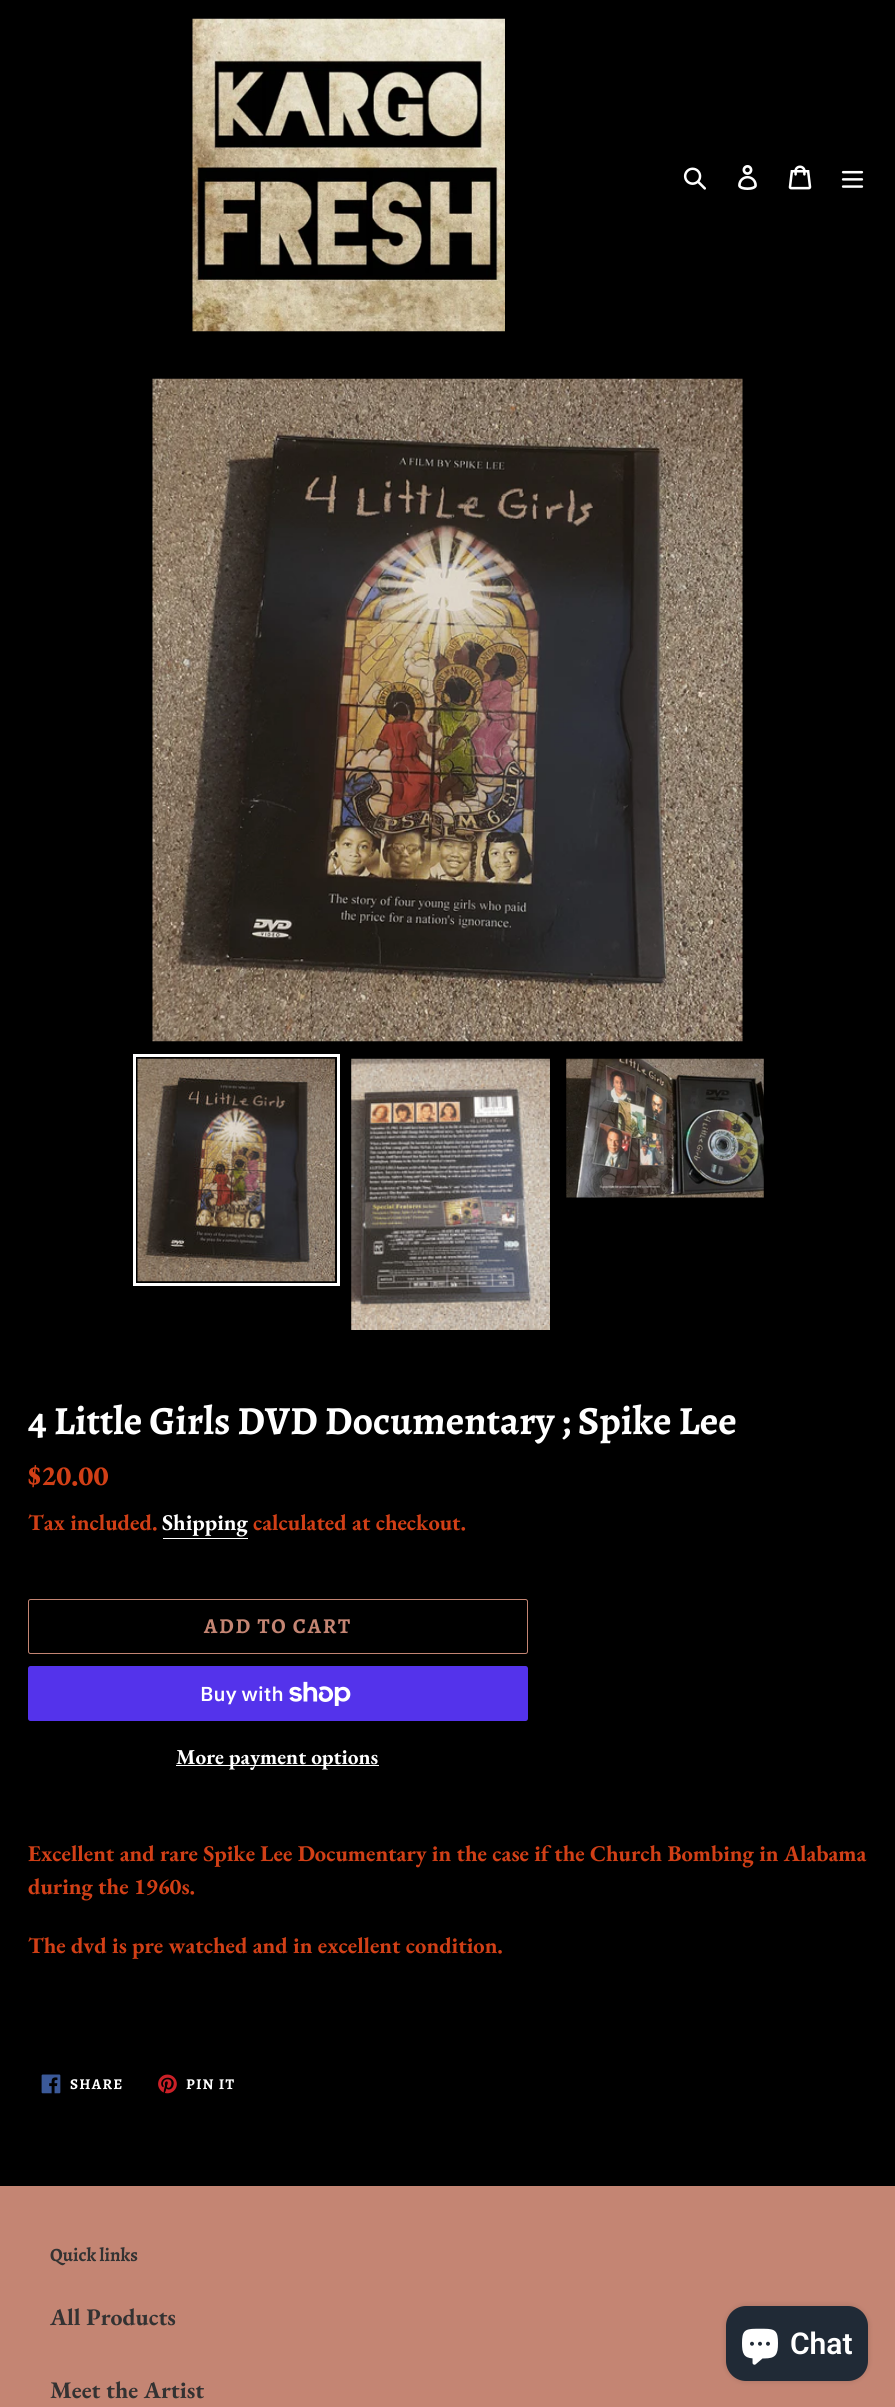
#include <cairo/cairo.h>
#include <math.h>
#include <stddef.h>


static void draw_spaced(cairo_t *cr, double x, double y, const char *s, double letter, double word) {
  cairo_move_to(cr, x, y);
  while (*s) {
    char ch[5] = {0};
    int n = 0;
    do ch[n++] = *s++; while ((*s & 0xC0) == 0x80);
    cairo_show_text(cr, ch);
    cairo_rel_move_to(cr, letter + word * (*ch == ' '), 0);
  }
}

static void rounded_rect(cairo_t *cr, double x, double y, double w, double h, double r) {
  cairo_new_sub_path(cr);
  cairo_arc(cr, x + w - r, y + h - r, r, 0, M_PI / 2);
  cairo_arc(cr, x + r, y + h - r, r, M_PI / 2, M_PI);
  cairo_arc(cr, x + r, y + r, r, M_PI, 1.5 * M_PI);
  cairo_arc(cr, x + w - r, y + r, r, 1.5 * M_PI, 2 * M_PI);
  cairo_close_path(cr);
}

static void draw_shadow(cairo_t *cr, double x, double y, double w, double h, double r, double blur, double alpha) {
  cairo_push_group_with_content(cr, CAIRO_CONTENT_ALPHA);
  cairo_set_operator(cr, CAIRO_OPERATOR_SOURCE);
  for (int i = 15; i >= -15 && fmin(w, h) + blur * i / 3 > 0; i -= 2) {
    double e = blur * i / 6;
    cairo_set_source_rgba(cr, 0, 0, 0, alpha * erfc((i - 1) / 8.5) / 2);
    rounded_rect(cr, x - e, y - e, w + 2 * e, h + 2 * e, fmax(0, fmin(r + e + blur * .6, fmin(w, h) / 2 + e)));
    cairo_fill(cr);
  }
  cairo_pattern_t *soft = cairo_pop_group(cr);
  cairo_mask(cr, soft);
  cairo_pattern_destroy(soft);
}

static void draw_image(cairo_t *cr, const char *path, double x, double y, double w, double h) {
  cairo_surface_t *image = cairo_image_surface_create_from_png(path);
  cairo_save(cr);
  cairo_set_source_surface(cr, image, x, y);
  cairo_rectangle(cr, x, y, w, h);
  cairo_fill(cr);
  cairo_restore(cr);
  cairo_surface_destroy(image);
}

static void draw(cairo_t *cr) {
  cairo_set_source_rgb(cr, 0, 0, 0);
  cairo_paint(cr);
  draw_image(cr, "images/1.png", 192, 18, 313, 314);
  draw_image(cr, "images/2.png", 683, 167, 23, 23);
  draw_image(cr, "images/3.png", 738, 165, 19, 25);
  draw_image(cr, "images/4.png", 788, 165, 24, 25);
  draw_image(cr, "images/5.png", 841, 170, 23, 18);
  draw_image(cr, "images/6.png", 152, 378, 591, 664);
  cairo_rectangle(cr, 134.5, 1055.5, 204, 229);
  cairo_set_source_rgb(cr, 1, 1, 1);
  cairo_set_line_width(cr, 3);
  cairo_stroke(cr);
  draw_image(cr, "images/7.png", 137, 1058, 198, 224);
  draw_image(cr, "images/8.png", 351, 1058, 199, 272);
  draw_image(cr, "images/9.png", 566, 1058, 198, 140);
  cairo_rectangle(cr, 163, 1538, 85, 1);
  cairo_fill(cr);
  rounded_rect(cr, 28.5, 1599.5, 499, 54, 2);
  cairo_set_source_rgb(cr, 196 / 255.0, 133 / 255.0, 115 / 255.0);
  cairo_set_line_width(cr, 1);
  cairo_stroke(cr);
  cairo_set_source_rgb(cr, 84 / 255.0, 51 / 255.0, 235 / 255.0);
  rounded_rect(cr, 28, 1666, 500, 55, 2.5);
  cairo_fill(cr);
  draw_image(cr, "images/10.png", 289, 1681, 62, 25);
  cairo_set_source_rgb(cr, 1, 1, 1);
  cairo_rectangle(cr, 176, 1765, 203, 1);
  cairo_fill(cr);
  draw_image(cr, "images/11.png", 41, 2074, 20, 20);
  draw_image(cr, "images/12.png", 158, 2074, 19, 20);
  cairo_set_source_rgb(cr, 196 / 255.0, 133 / 255.0, 115 / 255.0);
  cairo_rectangle(cr, 0, 2186, 895, 221);
  cairo_fill(cr);
  cairo_set_source_rgb(cr, 0, 0, 0);
  draw_shadow(cr, 726, 2306, 142, 75, 20, 3, 0.15);
  cairo_set_source_rgb(cr, 32 / 255.0, 42 / 255.0, 54 / 255.0);
  rounded_rect(cr, 726, 2306, 142, 75, 20);
  cairo_fill(cr);
  draw_image(cr, "images/13.png", 742, 2328, 36, 37);
  cairo_select_font_face(cr, "Alegreya", CAIRO_FONT_SLANT_NORMAL, CAIRO_FONT_WEIGHT_BOLD);
  cairo_set_font_size(cr, 40);
  cairo_set_source_rgb(cr, 1, 1, 1);
  cairo_move_to(cr, 28, 1434);
  cairo_show_text(cr, "4 Little Girls DVD Documentary ; Spike Lee");
  cairo_select_font_face(cr, "EB Garamond ExtraBold", CAIRO_FONT_SLANT_NORMAL, CAIRO_FONT_WEIGHT_NORMAL);
  cairo_set_font_size(cr, 28);
  cairo_set_source_rgb(cr, 209 / 255.0, 63 / 255.0, 22 / 255.0);
  cairo_move_to(cr, 28, 1485);
  cairo_show_text(cr, "$20.00");
  cairo_select_font_face(cr, "EB Garamond", CAIRO_FONT_SLANT_NORMAL, CAIRO_FONT_WEIGHT_BOLD);
  cairo_set_font_size(cr, 22.5);
  cairo_move_to(cr, 28, 1530);
  cairo_show_text(cr, "Tax included.");
  cairo_set_source_rgb(cr, 1, 1, 1);
  cairo_move_to(cr, 162, 1530);
  cairo_show_text(cr, "Shipping");
  cairo_set_source_rgb(cr, 209 / 255.0, 63 / 255.0, 22 / 255.0);
  cairo_move_to(cr, 253, 1530);
  cairo_show_text(cr, "calculated at checkout.");
  cairo_select_font_face(cr, "Alegreya", CAIRO_FONT_SLANT_NORMAL, CAIRO_FONT_WEIGHT_BOLD);
  cairo_set_font_size(cr, 21.25);
  cairo_set_source_rgb(cr, 196 / 255.0, 133 / 255.0, 115 / 255.0);
  draw_spaced(cr, 204, 1633, "ADD TO CART", 1.75, 0);
  cairo_select_font_face(cr, "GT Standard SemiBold", CAIRO_FONT_SLANT_NORMAL, CAIRO_FONT_WEIGHT_NORMAL);
  cairo_set_font_size(cr, 20);
  cairo_set_source_rgb(cr, 1, 1, 1);
  cairo_move_to(cr, 200, 1701);
  cairo_show_text(cr, "Buy with");
  cairo_select_font_face(cr, "EB Garamond", CAIRO_FONT_SLANT_NORMAL, CAIRO_FONT_WEIGHT_BOLD);
  cairo_set_font_size(cr, 21.25);
  cairo_move_to(cr, 176, 1764);
  cairo_show_text(cr, "More payment options");
  cairo_set_font_size(cr, 22.5);
  cairo_set_source_rgb(cr, 209 / 255.0, 63 / 255.0, 22 / 255.0);
  cairo_move_to(cr, 28, 1861);
  cairo_show_text(cr, "Excellent and rare Spike Lee Documentary in the case if the Church Bombing in Alabama");
  cairo_move_to(cr, 28, 1894);
  cairo_show_text(cr, "during the 1960s.");
  cairo_move_to(cr, 28, 1953);
  cairo_show_text(cr, "The dvd is pre watched and in excellent condition.");
  cairo_select_font_face(cr, "Alegreya", CAIRO_FONT_SLANT_NORMAL, CAIRO_FONT_WEIGHT_BOLD);
  cairo_set_font_size(cr, 15);
  cairo_set_source_rgb(cr, 1, 1, 1);
  draw_spaced(cr, 70, 2089, "SHARE", 1.25, 0);
  draw_spaced(cr, 186, 2089, "PIN IT", 1.25, 0);
  cairo_set_font_size(cr, 18.75);
  cairo_set_source_rgb(cr, 51 / 255.0, 50 / 255.0, 50 / 255.0);
  cairo_move_to(cr, 50, 2261);
  cairo_show_text(cr, "Quick links");
  cairo_select_font_face(cr, "EB Garamond", CAIRO_FONT_SLANT_NORMAL, CAIRO_FONT_WEIGHT_BOLD);
  cairo_set_font_size(cr, 23.75);
  cairo_move_to(cr, 50, 2325);
  cairo_show_text(cr, "All Products");
  cairo_move_to(cr, 50, 2398);
  cairo_show_text(cr, "Meet the Artist");
  cairo_select_font_face(cr, "Roboto SemiBold", CAIRO_FONT_SLANT_NORMAL, CAIRO_FONT_WEIGHT_NORMAL);
  cairo_set_font_size(cr, 30);
  cairo_set_source_rgb(cr, 1, 1, 1);
  cairo_move_to(cr, 790, 2354);
  cairo_show_text(cr, "Chat");
}

int main(void) {
  cairo_surface_t *surface = cairo_image_surface_create(CAIRO_FORMAT_RGB24, 895, 2407);
  cairo_t *cr = cairo_create(surface);
  cairo_font_options_t *options = cairo_font_options_create();
  cairo_font_options_set_hint_metrics(options, CAIRO_HINT_METRICS_OFF);
  cairo_font_options_set_hint_style(options, CAIRO_HINT_STYLE_NONE);
  cairo_set_font_options(cr, options);
  cairo_set_miter_limit(cr, 4);
  draw(cr);
  cairo_surface_write_to_png(surface, "out.png");
  cairo_font_options_destroy(options);
  cairo_destroy(cr);
  cairo_surface_destroy(surface);
  return 0;
}
